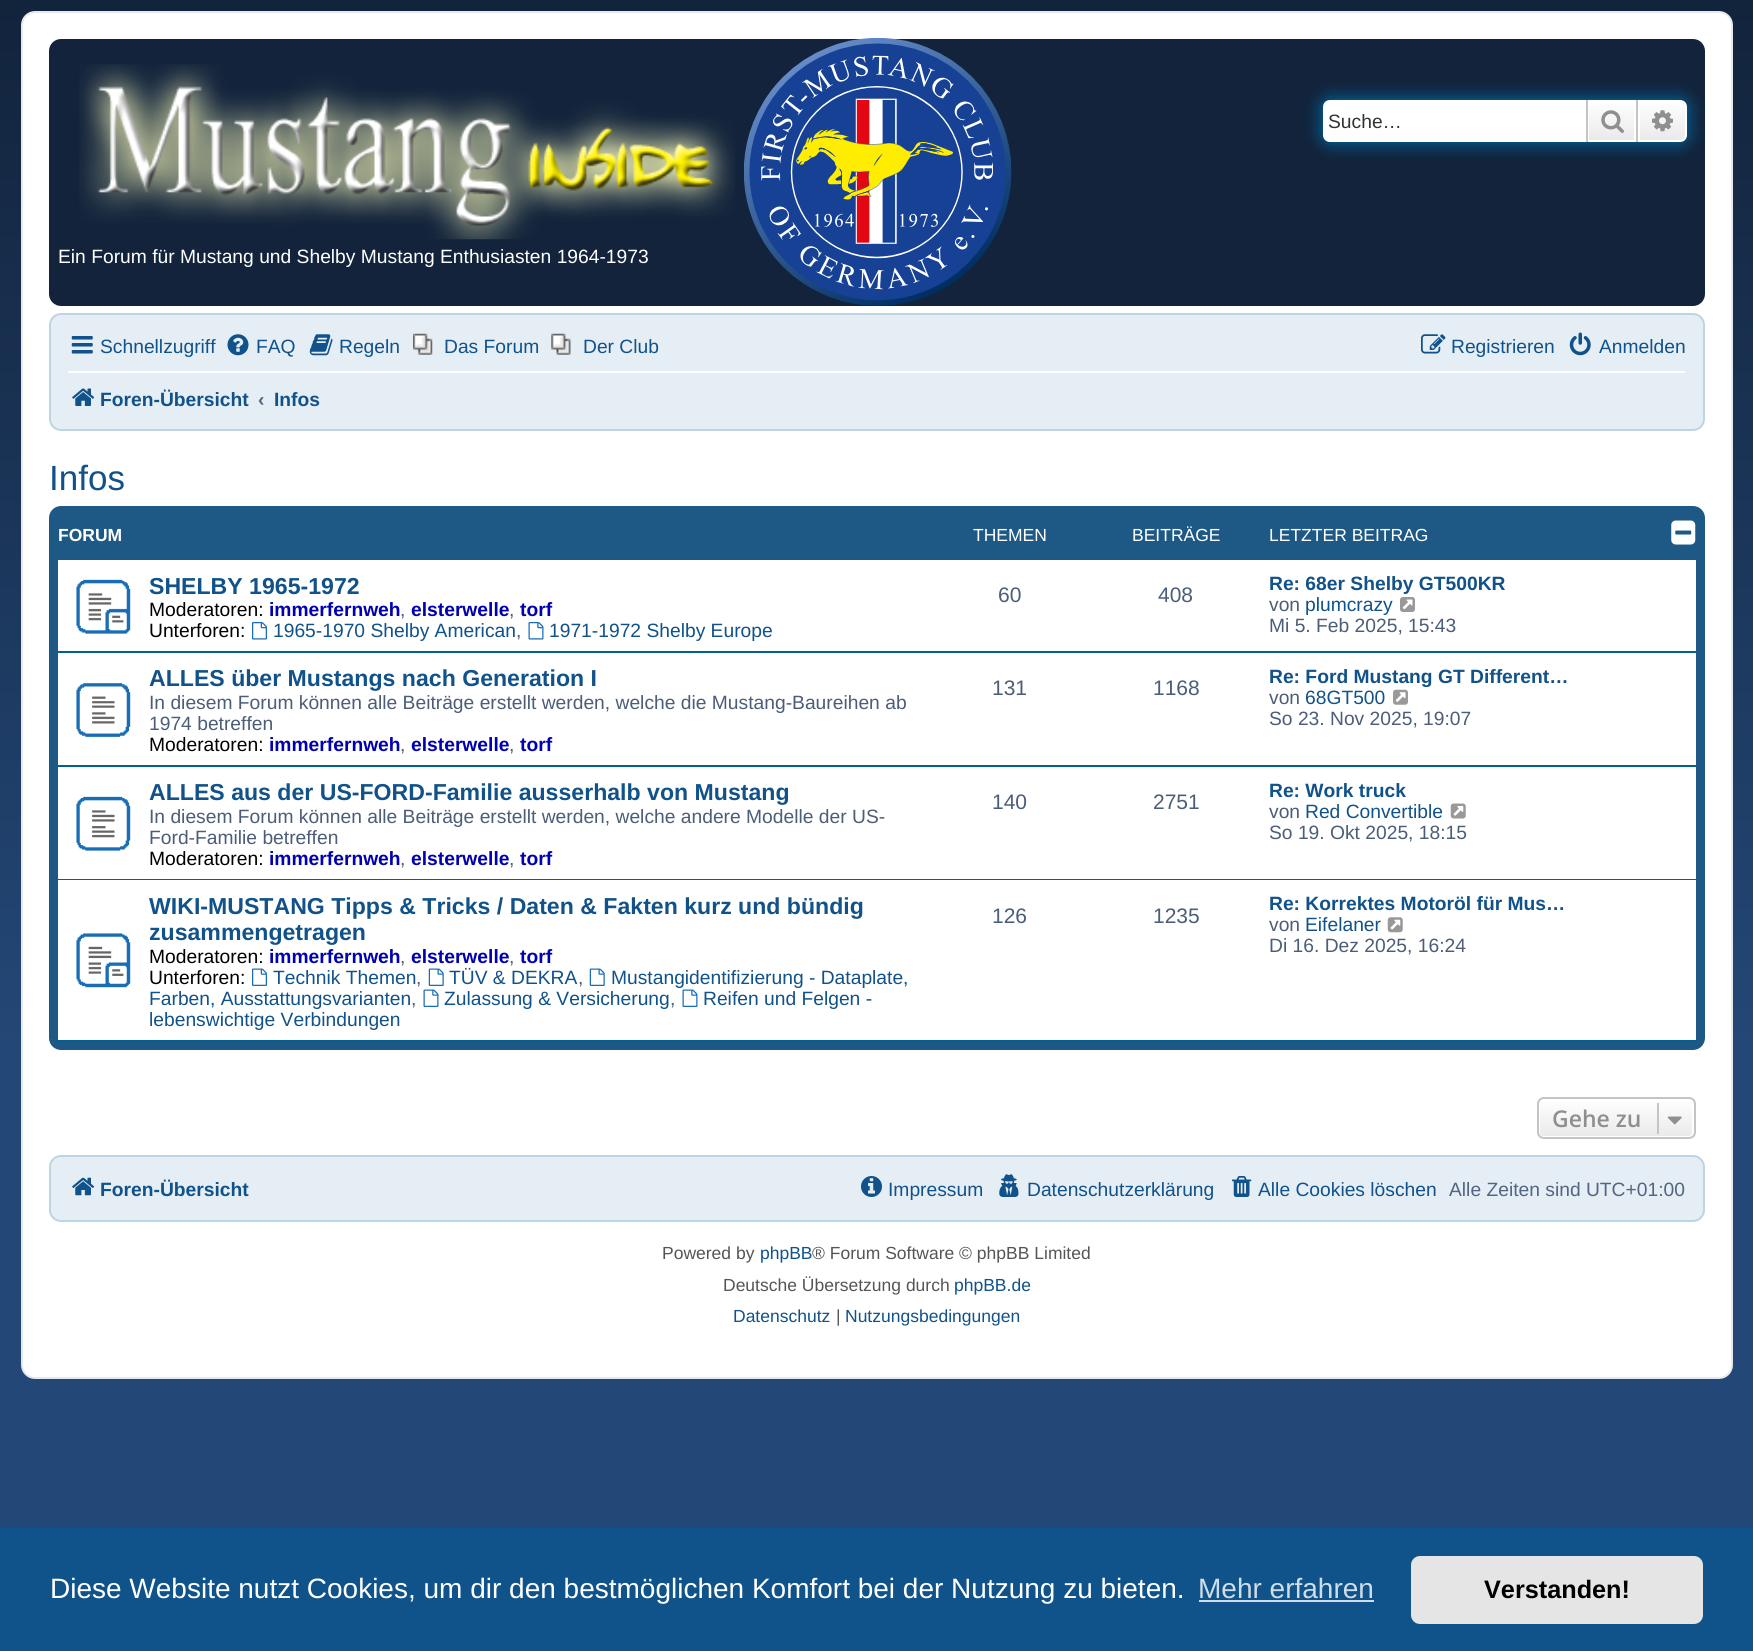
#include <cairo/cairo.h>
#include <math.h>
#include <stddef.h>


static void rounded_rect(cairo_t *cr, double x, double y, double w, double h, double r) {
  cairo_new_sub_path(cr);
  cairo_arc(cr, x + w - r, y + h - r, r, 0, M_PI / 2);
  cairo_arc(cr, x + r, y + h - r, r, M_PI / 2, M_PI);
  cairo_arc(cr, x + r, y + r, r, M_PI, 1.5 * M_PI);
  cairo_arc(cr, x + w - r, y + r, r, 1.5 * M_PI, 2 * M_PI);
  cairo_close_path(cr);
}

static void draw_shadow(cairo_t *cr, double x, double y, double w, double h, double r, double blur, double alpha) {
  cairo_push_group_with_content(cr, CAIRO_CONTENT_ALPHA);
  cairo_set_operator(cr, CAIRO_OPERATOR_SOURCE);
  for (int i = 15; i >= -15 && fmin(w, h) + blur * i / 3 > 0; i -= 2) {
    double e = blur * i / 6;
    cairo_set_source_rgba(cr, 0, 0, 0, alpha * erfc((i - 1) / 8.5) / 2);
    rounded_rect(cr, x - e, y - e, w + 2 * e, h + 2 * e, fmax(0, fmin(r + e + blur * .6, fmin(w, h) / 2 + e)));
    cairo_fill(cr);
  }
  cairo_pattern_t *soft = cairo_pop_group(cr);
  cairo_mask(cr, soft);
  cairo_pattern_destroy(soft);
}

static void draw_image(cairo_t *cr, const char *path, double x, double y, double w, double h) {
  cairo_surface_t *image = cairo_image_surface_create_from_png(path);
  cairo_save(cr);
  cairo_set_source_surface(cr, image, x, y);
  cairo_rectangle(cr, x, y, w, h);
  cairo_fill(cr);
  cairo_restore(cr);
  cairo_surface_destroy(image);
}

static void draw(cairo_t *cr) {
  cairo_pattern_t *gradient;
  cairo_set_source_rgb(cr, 1, 1, 1);
  cairo_paint(cr);
  gradient = cairo_pattern_create_linear(877, -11, 877, 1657);
  cairo_pattern_add_color_stop_rgba(gradient, 0, 18 / 255.0, 35 / 255.0, 59 / 255.0, 1);
  cairo_pattern_add_color_stop_rgba(gradient, 0.63, 35 / 255.0, 71 / 255.0, 118 / 255.0, 1);
  cairo_pattern_add_color_stop_rgba(gradient, 1, 35 / 255.0, 71 / 255.0, 118 / 255.0, 1);
  cairo_set_source(cr, gradient);
  cairo_pattern_destroy(gradient);
  cairo_rectangle(cr, 0, 0, 1753, 1528);
  cairo_fill(cr);
  cairo_set_source_rgb(cr, 1, 1, 1);
  rounded_rect(cr, 22, 12, 1710, 1366, 13);
  cairo_fill_preserve(cr);
  cairo_set_source_rgb(cr, 230 / 255.0, 233 / 255.0, 237 / 255.0);
  cairo_stroke(cr);
  cairo_set_source_rgb(cr, 18 / 255.0, 35 / 255.0, 59 / 255.0);
  rounded_rect(cr, 49, 39, 1656, 267, 12);
  cairo_fill(cr);
  draw_image(cr, "images/1.png", 744, 38, 268, 268);
  cairo_set_source_rgb(cr, 0, 117 / 255.0, 176 / 255.0);
  draw_shadow(cr, 1323, 100, 364, 42, 7, 9, 1);
  cairo_set_source_rgb(cr, 1, 1, 1);
  cairo_new_path(cr);
  cairo_move_to(cr, 1330, 100);
  cairo_line_to(cr, 1586, 100);
  cairo_line_to(cr, 1586, 142);
  cairo_line_to(cr, 1330, 142);
  cairo_curve_to(cr, 1326, 142, 1323, 139, 1323, 135);
  cairo_line_to(cr, 1323, 107);
  cairo_curve_to(cr, 1323, 103, 1326, 100, 1330, 100);
  cairo_close_path(cr);
  cairo_fill(cr);
  gradient = cairo_pattern_create_linear(1612, 100, 1612, 142);
  cairo_pattern_add_color_stop_rgba(gradient, 0, 1, 1, 1, 1);
  cairo_pattern_add_color_stop_rgba(gradient, 1, 233 / 255.0, 233 / 255.0, 233 / 255.0, 1);
  cairo_set_source(cr, gradient);
  cairo_pattern_destroy(gradient);
  cairo_rectangle(cr, 1589, 102, 45, 38);
  cairo_fill(cr);
  cairo_rectangle(cr, 1588, 101, 47, 40);
  cairo_set_source_rgb(cr, 1, 1, 1);
  cairo_stroke(cr);
  cairo_set_source_rgb(cr, 199 / 255.0, 195 / 255.0, 191 / 255.0);
  cairo_rectangle(cr, 1636, 100, 2, 42);
  cairo_fill(cr);
  cairo_rectangle(cr, 1586, 100, 2, 42);
  cairo_fill(cr);
  draw_image(cr, "images/2.png", 1601, 110, 23, 23);
  gradient = cairo_pattern_create_linear(1663, 100, 1663, 142);
  cairo_pattern_add_color_stop_rgba(gradient, 0, 1, 1, 1, 1);
  cairo_pattern_add_color_stop_rgba(gradient, 1, 233 / 255.0, 233 / 255.0, 233 / 255.0, 1);
  cairo_set_source(cr, gradient);
  cairo_pattern_destroy(gradient);
  cairo_new_path(cr);
  cairo_move_to(cr, 1639, 101);
  cairo_line_to(cr, 1680, 101);
  cairo_curve_to(cr, 1683.5, 101, 1686, 103.5, 1686, 107);
  cairo_line_to(cr, 1686, 135);
  cairo_curve_to(cr, 1686, 138.5, 1683.5, 141, 1680, 141);
  cairo_line_to(cr, 1639, 141);
  cairo_close_path(cr);
  cairo_fill_preserve(cr);
  cairo_set_source_rgb(cr, 1, 1, 1);
  cairo_stroke(cr);
  draw_image(cr, "images/3.png", 1652, 110, 21, 22);
  draw_image(cr, "images/4.png", 79, 64, 656, 176);
  cairo_set_source_rgb(cr, 229 / 255.0, 238 / 255.0, 245 / 255.0);
  rounded_rect(cr, 50, 314, 1654, 116, 11);
  cairo_fill_preserve(cr);
  cairo_set_source_rgb(cr, 188 / 255.0, 212 / 255.0, 227 / 255.0);
  cairo_stroke(cr);
  draw_image(cr, "images/5.png", 71, 336, 22, 18);
  draw_image(cr, "images/6.png", 227, 334, 22, 22);
  draw_image(cr, "images/7.png", 309, 334, 24, 22);
  draw_image(cr, "images/8.png", 413, 333, 20, 22);
  draw_image(cr, "images/9.png", 551, 333, 20, 22);
  draw_image(cr, "images/10.png", 1421, 334, 25, 20);
  draw_image(cr, "images/11.png", 1569, 332, 22, 24);
  cairo_set_source_rgb(cr, 1, 1, 1);
  cairo_rectangle(cr, 68, 371, 1617, 2);
  cairo_fill(cr);
  draw_image(cr, "images/12.png", 72, 388, 23, 18);
  cairo_set_source_rgb(cr, 30 / 255.0, 89 / 255.0, 134 / 255.0);
  rounded_rect(cr, 49, 506, 1656, 544, 12);
  cairo_fill(cr);
  draw_image(cr, "images/13.png", 1671, 520, 25, 25);
  cairo_set_source_rgb(cr, 1, 1, 1);
  cairo_rectangle(cr, 58, 560, 1638, 480);
  cairo_fill(cr);
  cairo_set_source_rgb(cr, 0, 96 / 255.0, 143 / 255.0);
  cairo_rectangle(cr, 58, 651, 1638, 2);
  cairo_fill(cr);
  draw_image(cr, "images/14.png", 76, 579, 55, 55);
  draw_image(cr, "images/15.png", 252, 622, 15, 18);
  draw_image(cr, "images/16.png", 528, 622, 16, 18);
  draw_image(cr, "images/17.png", 1400, 597, 15, 15);
  cairo_rectangle(cr, 58, 765, 1638, 2);
  cairo_fill(cr);
  draw_image(cr, "images/18.png", 76, 683, 55, 54);
  draw_image(cr, "images/19.png", 1393, 689, 15, 16);
  cairo_rectangle(cr, 58, 879, 1638, 1);
  cairo_fill(cr);
  draw_image(cr, "images/20.png", 76, 796, 55, 55);
  draw_image(cr, "images/21.png", 1450, 803, 16, 16);
  cairo_rectangle(cr, 58, 1040, 1638, 2);
  cairo_fill(cr);
  draw_image(cr, "images/22.png", 76, 933, 55, 55);
  draw_image(cr, "images/23.png", 428, 968, 16, 18);
  draw_image(cr, "images/23.png", 589, 968, 16, 18);
  draw_image(cr, "images/24.png", 252, 968, 15, 18);
  draw_image(cr, "images/25.png", 682, 989, 16, 18);
  draw_image(cr, "images/25.png", 423, 989, 16, 18);
  draw_image(cr, "images/26.png", 1387, 917, 16, 16);
  cairo_save(cr);
  rounded_rect(cr, 1537, 1097, 159, 42, 7);
  cairo_clip(cr);
  gradient = cairo_pattern_create_linear(1616, 1099, 1616, 1138);
  cairo_pattern_add_color_stop_rgba(gradient, 0, 1, 1, 1, 1);
  cairo_pattern_add_color_stop_rgba(gradient, 1, 233 / 255.0, 233 / 255.0, 233 / 255.0, 1);
  cairo_set_source(cr, gradient);
  cairo_pattern_destroy(gradient);
  cairo_rectangle(cr, 1537, 1099, 159, 39);
  cairo_fill(cr);
  cairo_restore(cr);
  rounded_rect(cr, 1539, 1100, 154, 37, 4);
  cairo_set_source_rgb(cr, 1, 1, 1);
  cairo_stroke(cr);
  rounded_rect(cr, 1538, 1098, 157, 40, 6);
  cairo_set_source_rgb(cr, 199 / 255.0, 195 / 255.0, 191 / 255.0);
  cairo_stroke(cr);
  cairo_rectangle(cr, 1657, 1103, 2, 31);
  cairo_fill(cr);
  draw_image(cr, "images/27.png", 1667, 1116, 15, 9);
  cairo_set_source_rgb(cr, 229 / 255.0, 238 / 255.0, 245 / 255.0);
  rounded_rect(cr, 50, 1156, 1654, 65, 11);
  cairo_fill_preserve(cr);
  cairo_set_source_rgb(cr, 188 / 255.0, 212 / 255.0, 227 / 255.0);
  cairo_stroke(cr);
  draw_image(cr, "images/28.png", 72, 1177, 23, 19);
  draw_image(cr, "images/29.png", 861, 1176, 21, 21);
  draw_image(cr, "images/30.png", 999, 1174, 20, 23);
  draw_image(cr, "images/31.png", 1232, 1176, 20, 21);
  cairo_set_source_rgb(cr, 15 / 255.0, 83 / 255.0, 138 / 255.0);
  cairo_rectangle(cr, 0, 1528, 1753, 123);
  cairo_fill(cr);
  cairo_set_source_rgb(cr, 207 / 255.0, 221 / 255.0, 232 / 255.0);
  cairo_rectangle(cr, 1199, 1600, 175, 2);
  cairo_fill(cr);
  cairo_set_source_rgb(cr, 229 / 255.0, 229 / 255.0, 229 / 255.0);
  rounded_rect(cr, 1411, 1556, 292, 68, 9);
  cairo_fill(cr);
  cairo_select_font_face(cr, "Liberation Sans", CAIRO_FONT_SLANT_NORMAL, CAIRO_FONT_WEIGHT_NORMAL);
  cairo_set_font_size(cr, 19.25);
  cairo_set_source_rgb(cr, 51 / 255.0, 51 / 255.0, 51 / 255.0);
  cairo_move_to(cr, 1328, 128);
  cairo_show_text(cr, "Suche…");
  cairo_set_source_rgb(cr, 1, 1, 1);
  cairo_move_to(cr, 58, 263);
  cairo_show_text(cr, "Ein Forum für Mustang und Shelby Mustang Enthusiasten 1964-1973");
  cairo_set_source_rgb(cr, 16 / 255.0, 82 / 255.0, 137 / 255.0);
  cairo_move_to(cr, 100, 353);
  cairo_show_text(cr, "Schnellzugriff");
  cairo_move_to(cr, 256, 353);
  cairo_show_text(cr, "FAQ");
  cairo_move_to(cr, 339, 353);
  cairo_show_text(cr, "Regeln");
  cairo_move_to(cr, 444, 353);
  cairo_show_text(cr, "Das Forum");
  cairo_move_to(cr, 583, 353);
  cairo_show_text(cr, "Der Club");
  cairo_move_to(cr, 1451, 353);
  cairo_show_text(cr, "Registrieren");
  cairo_move_to(cr, 1599, 353);
  cairo_show_text(cr, "Anmelden");
  cairo_select_font_face(cr, "Liberation Sans", CAIRO_FONT_SLANT_NORMAL, CAIRO_FONT_WEIGHT_BOLD);
  cairo_move_to(cr, 100, 406);
  cairo_show_text(cr, "Foren-Übersicht");
  cairo_set_source_rgb(cr, 83 / 255.0, 100 / 255.0, 130 / 255.0);
  cairo_move_to(cr, 258, 406);
  cairo_show_text(cr, "‹");
  cairo_set_source_rgb(cr, 16 / 255.0, 82 / 255.0, 137 / 255.0);
  cairo_move_to(cr, 274, 406);
  cairo_show_text(cr, "Infos");
  cairo_select_font_face(cr, "Liberation Sans", CAIRO_FONT_SLANT_NORMAL, CAIRO_FONT_WEIGHT_NORMAL);
  cairo_set_font_size(cr, 35);
  cairo_move_to(cr, 49, 490);
  cairo_show_text(cr, "Infos");
  cairo_select_font_face(cr, "Liberation Sans", CAIRO_FONT_SLANT_NORMAL, CAIRO_FONT_WEIGHT_BOLD);
  cairo_set_font_size(cr, 17.5);
  cairo_set_source_rgb(cr, 1, 1, 1);
  cairo_move_to(cr, 58, 541);
  cairo_show_text(cr, "FORUM");
  cairo_select_font_face(cr, "Liberation Sans", CAIRO_FONT_SLANT_NORMAL, CAIRO_FONT_WEIGHT_NORMAL);
  cairo_move_to(cr, 973, 541);
  cairo_show_text(cr, "THEMEN");
  cairo_move_to(cr, 1132, 541);
  cairo_show_text(cr, "BEITRÄGE");
  cairo_move_to(cr, 1269, 541);
  cairo_show_text(cr, "LETZTER BEITRAG");
  cairo_select_font_face(cr, "Liberation Sans", CAIRO_FONT_SLANT_NORMAL, CAIRO_FONT_WEIGHT_BOLD);
  cairo_set_font_size(cr, 23.1);
  cairo_set_source_rgb(cr, 16 / 255.0, 82 / 255.0, 137 / 255.0);
  cairo_move_to(cr, 149, 594);
  cairo_show_text(cr, "SHELBY 1965-1972");
  cairo_select_font_face(cr, "Liberation Sans", CAIRO_FONT_SLANT_NORMAL, CAIRO_FONT_WEIGHT_NORMAL);
  cairo_set_font_size(cr, 19.25);
  cairo_set_source_rgb(cr, 0, 0, 0);
  cairo_move_to(cr, 149, 616);
  cairo_show_text(cr, "Moderatoren:");
  cairo_select_font_face(cr, "Liberation Sans", CAIRO_FONT_SLANT_NORMAL, CAIRO_FONT_WEIGHT_BOLD);
  cairo_set_source_rgb(cr, 0, 0, 178 / 255.0);
  cairo_move_to(cr, 269, 616);
  cairo_show_text(cr, "immerfernweh");
  cairo_select_font_face(cr, "Liberation Sans", CAIRO_FONT_SLANT_NORMAL, CAIRO_FONT_WEIGHT_NORMAL);
  cairo_set_source_rgb(cr, 76 / 255.0, 93 / 255.0, 119 / 255.0);
  cairo_move_to(cr, 400, 616);
  cairo_show_text(cr, ",");
  cairo_select_font_face(cr, "Liberation Sans", CAIRO_FONT_SLANT_NORMAL, CAIRO_FONT_WEIGHT_BOLD);
  cairo_set_source_rgb(cr, 0, 0, 178 / 255.0);
  cairo_move_to(cr, 411, 616);
  cairo_show_text(cr, "elsterwelle");
  cairo_select_font_face(cr, "Liberation Sans", CAIRO_FONT_SLANT_NORMAL, CAIRO_FONT_WEIGHT_NORMAL);
  cairo_set_source_rgb(cr, 76 / 255.0, 93 / 255.0, 119 / 255.0);
  cairo_move_to(cr, 509, 616);
  cairo_show_text(cr, ",");
  cairo_select_font_face(cr, "Liberation Sans", CAIRO_FONT_SLANT_NORMAL, CAIRO_FONT_WEIGHT_BOLD);
  cairo_set_source_rgb(cr, 0, 0, 178 / 255.0);
  cairo_move_to(cr, 520, 616);
  cairo_show_text(cr, "torf");
  cairo_select_font_face(cr, "Liberation Sans", CAIRO_FONT_SLANT_NORMAL, CAIRO_FONT_WEIGHT_NORMAL);
  cairo_set_source_rgb(cr, 0, 0, 0);
  cairo_move_to(cr, 149, 637);
  cairo_show_text(cr, "Unterforen:");
  cairo_set_source_rgb(cr, 16 / 255.0, 82 / 255.0, 137 / 255.0);
  cairo_move_to(cr, 273, 637);
  cairo_show_text(cr, "1965-1970 Shelby American");
  cairo_set_source_rgb(cr, 76 / 255.0, 93 / 255.0, 119 / 255.0);
  cairo_move_to(cr, 516, 637);
  cairo_show_text(cr, ",");
  cairo_set_source_rgb(cr, 16 / 255.0, 82 / 255.0, 137 / 255.0);
  cairo_move_to(cr, 549, 637);
  cairo_show_text(cr, "1971-1972 Shelby Europe");
  cairo_set_font_size(cr, 21);
  cairo_set_source_rgb(cr, 76 / 255.0, 93 / 255.0, 119 / 255.0);
  cairo_move_to(cr, 998, 602);
  cairo_show_text(cr, "60");
  cairo_move_to(cr, 1158, 602);
  cairo_show_text(cr, "408");
  cairo_select_font_face(cr, "Liberation Sans", CAIRO_FONT_SLANT_NORMAL, CAIRO_FONT_WEIGHT_BOLD);
  cairo_set_font_size(cr, 19.25);
  cairo_set_source_rgb(cr, 16 / 255.0, 82 / 255.0, 137 / 255.0);
  cairo_move_to(cr, 1269, 590);
  cairo_show_text(cr, "Re: 68er Shelby GT500KR");
  cairo_select_font_face(cr, "Liberation Sans", CAIRO_FONT_SLANT_NORMAL, CAIRO_FONT_WEIGHT_NORMAL);
  cairo_set_source_rgb(cr, 76 / 255.0, 93 / 255.0, 119 / 255.0);
  cairo_move_to(cr, 1269, 611);
  cairo_show_text(cr, "von");
  cairo_set_source_rgb(cr, 16 / 255.0, 82 / 255.0, 137 / 255.0);
  cairo_move_to(cr, 1305, 611);
  cairo_show_text(cr, "plumcrazy");
  cairo_set_source_rgb(cr, 76 / 255.0, 93 / 255.0, 119 / 255.0);
  cairo_move_to(cr, 1269, 632);
  cairo_show_text(cr, "Mi 5. Feb 2025, 15:43");
  cairo_select_font_face(cr, "Liberation Sans", CAIRO_FONT_SLANT_NORMAL, CAIRO_FONT_WEIGHT_BOLD);
  cairo_set_font_size(cr, 23.1);
  cairo_set_source_rgb(cr, 16 / 255.0, 82 / 255.0, 137 / 255.0);
  cairo_move_to(cr, 149, 686);
  cairo_show_text(cr, "ALLES über Mustangs nach Generation I");
  cairo_select_font_face(cr, "Liberation Sans", CAIRO_FONT_SLANT_NORMAL, CAIRO_FONT_WEIGHT_NORMAL);
  cairo_set_font_size(cr, 19.25);
  cairo_set_source_rgb(cr, 76 / 255.0, 93 / 255.0, 119 / 255.0);
  cairo_move_to(cr, 149, 709);
  cairo_show_text(cr, "In diesem Forum können alle Beiträge erstellt werden, welche die Mustang-Baureihen ab");
  cairo_move_to(cr, 149, 730);
  cairo_show_text(cr, "1974 betreffen");
  cairo_set_source_rgb(cr, 0, 0, 0);
  cairo_move_to(cr, 149, 751);
  cairo_show_text(cr, "Moderatoren:");
  cairo_select_font_face(cr, "Liberation Sans", CAIRO_FONT_SLANT_NORMAL, CAIRO_FONT_WEIGHT_BOLD);
  cairo_set_source_rgb(cr, 0, 0, 178 / 255.0);
  cairo_move_to(cr, 269, 751);
  cairo_show_text(cr, "immerfernweh");
  cairo_select_font_face(cr, "Liberation Sans", CAIRO_FONT_SLANT_NORMAL, CAIRO_FONT_WEIGHT_NORMAL);
  cairo_set_source_rgb(cr, 76 / 255.0, 93 / 255.0, 119 / 255.0);
  cairo_move_to(cr, 400, 751);
  cairo_show_text(cr, ",");
  cairo_select_font_face(cr, "Liberation Sans", CAIRO_FONT_SLANT_NORMAL, CAIRO_FONT_WEIGHT_BOLD);
  cairo_set_source_rgb(cr, 0, 0, 178 / 255.0);
  cairo_move_to(cr, 411, 751);
  cairo_show_text(cr, "elsterwelle");
  cairo_select_font_face(cr, "Liberation Sans", CAIRO_FONT_SLANT_NORMAL, CAIRO_FONT_WEIGHT_NORMAL);
  cairo_set_source_rgb(cr, 76 / 255.0, 93 / 255.0, 119 / 255.0);
  cairo_move_to(cr, 509, 751);
  cairo_show_text(cr, ",");
  cairo_select_font_face(cr, "Liberation Sans", CAIRO_FONT_SLANT_NORMAL, CAIRO_FONT_WEIGHT_BOLD);
  cairo_set_source_rgb(cr, 0, 0, 178 / 255.0);
  cairo_move_to(cr, 520, 751);
  cairo_show_text(cr, "torf");
  cairo_select_font_face(cr, "Liberation Sans", CAIRO_FONT_SLANT_NORMAL, CAIRO_FONT_WEIGHT_NORMAL);
  cairo_set_font_size(cr, 21);
  cairo_set_source_rgb(cr, 76 / 255.0, 93 / 255.0, 119 / 255.0);
  cairo_move_to(cr, 992, 695);
  cairo_show_text(cr, "131");
  cairo_move_to(cr, 1153, 695);
  cairo_show_text(cr, "1168");
  cairo_select_font_face(cr, "Liberation Sans", CAIRO_FONT_SLANT_NORMAL, CAIRO_FONT_WEIGHT_BOLD);
  cairo_set_font_size(cr, 19.25);
  cairo_set_source_rgb(cr, 16 / 255.0, 82 / 255.0, 137 / 255.0);
  cairo_move_to(cr, 1269, 683);
  cairo_show_text(cr, "Re: Ford Mustang GT Different…");
  cairo_select_font_face(cr, "Liberation Sans", CAIRO_FONT_SLANT_NORMAL, CAIRO_FONT_WEIGHT_NORMAL);
  cairo_set_source_rgb(cr, 76 / 255.0, 93 / 255.0, 119 / 255.0);
  cairo_move_to(cr, 1269, 704);
  cairo_show_text(cr, "von");
  cairo_set_source_rgb(cr, 16 / 255.0, 82 / 255.0, 137 / 255.0);
  cairo_move_to(cr, 1305, 704);
  cairo_show_text(cr, "68GT500");
  cairo_set_source_rgb(cr, 76 / 255.0, 93 / 255.0, 119 / 255.0);
  cairo_move_to(cr, 1269, 725);
  cairo_show_text(cr, "So 23. Nov 2025, 19:07");
  cairo_select_font_face(cr, "Liberation Sans", CAIRO_FONT_SLANT_NORMAL, CAIRO_FONT_WEIGHT_BOLD);
  cairo_set_font_size(cr, 23.1);
  cairo_set_source_rgb(cr, 16 / 255.0, 82 / 255.0, 137 / 255.0);
  cairo_move_to(cr, 149, 800);
  cairo_show_text(cr, "ALLES aus der US-FORD-Familie ausserhalb von Mustang");
  cairo_select_font_face(cr, "Liberation Sans", CAIRO_FONT_SLANT_NORMAL, CAIRO_FONT_WEIGHT_NORMAL);
  cairo_set_font_size(cr, 19.25);
  cairo_set_source_rgb(cr, 76 / 255.0, 93 / 255.0, 119 / 255.0);
  cairo_move_to(cr, 149, 823);
  cairo_show_text(cr, "In diesem Forum können alle Beiträge erstellt werden, welche andere Modelle der US-");
  cairo_move_to(cr, 149, 844);
  cairo_show_text(cr, "Ford-Familie betreffen");
  cairo_set_source_rgb(cr, 0, 0, 0);
  cairo_move_to(cr, 149, 865);
  cairo_show_text(cr, "Moderatoren:");
  cairo_select_font_face(cr, "Liberation Sans", CAIRO_FONT_SLANT_NORMAL, CAIRO_FONT_WEIGHT_BOLD);
  cairo_set_source_rgb(cr, 0, 0, 178 / 255.0);
  cairo_move_to(cr, 269, 865);
  cairo_show_text(cr, "immerfernweh");
  cairo_select_font_face(cr, "Liberation Sans", CAIRO_FONT_SLANT_NORMAL, CAIRO_FONT_WEIGHT_NORMAL);
  cairo_set_source_rgb(cr, 76 / 255.0, 93 / 255.0, 119 / 255.0);
  cairo_move_to(cr, 400, 865);
  cairo_show_text(cr, ",");
  cairo_select_font_face(cr, "Liberation Sans", CAIRO_FONT_SLANT_NORMAL, CAIRO_FONT_WEIGHT_BOLD);
  cairo_set_source_rgb(cr, 0, 0, 178 / 255.0);
  cairo_move_to(cr, 411, 865);
  cairo_show_text(cr, "elsterwelle");
  cairo_select_font_face(cr, "Liberation Sans", CAIRO_FONT_SLANT_NORMAL, CAIRO_FONT_WEIGHT_NORMAL);
  cairo_set_source_rgb(cr, 76 / 255.0, 93 / 255.0, 119 / 255.0);
  cairo_move_to(cr, 509, 865);
  cairo_show_text(cr, ",");
  cairo_select_font_face(cr, "Liberation Sans", CAIRO_FONT_SLANT_NORMAL, CAIRO_FONT_WEIGHT_BOLD);
  cairo_set_source_rgb(cr, 0, 0, 178 / 255.0);
  cairo_move_to(cr, 520, 865);
  cairo_show_text(cr, "torf");
  cairo_select_font_face(cr, "Liberation Sans", CAIRO_FONT_SLANT_NORMAL, CAIRO_FONT_WEIGHT_NORMAL);
  cairo_set_font_size(cr, 21);
  cairo_set_source_rgb(cr, 76 / 255.0, 93 / 255.0, 119 / 255.0);
  cairo_move_to(cr, 992, 809);
  cairo_show_text(cr, "140");
  cairo_move_to(cr, 1153, 809);
  cairo_show_text(cr, "2751");
  cairo_select_font_face(cr, "Liberation Sans", CAIRO_FONT_SLANT_NORMAL, CAIRO_FONT_WEIGHT_BOLD);
  cairo_set_font_size(cr, 19.25);
  cairo_set_source_rgb(cr, 16 / 255.0, 82 / 255.0, 137 / 255.0);
  cairo_move_to(cr, 1269, 797);
  cairo_show_text(cr, "Re: Work truck");
  cairo_select_font_face(cr, "Liberation Sans", CAIRO_FONT_SLANT_NORMAL, CAIRO_FONT_WEIGHT_NORMAL);
  cairo_set_source_rgb(cr, 76 / 255.0, 93 / 255.0, 119 / 255.0);
  cairo_move_to(cr, 1269, 818);
  cairo_show_text(cr, "von");
  cairo_set_source_rgb(cr, 16 / 255.0, 82 / 255.0, 137 / 255.0);
  cairo_move_to(cr, 1305, 818);
  cairo_show_text(cr, "Red Convertible");
  cairo_set_source_rgb(cr, 76 / 255.0, 93 / 255.0, 119 / 255.0);
  cairo_move_to(cr, 1269, 839);
  cairo_show_text(cr, "So 19. Okt 2025, 18:15");
  cairo_select_font_face(cr, "Liberation Sans", CAIRO_FONT_SLANT_NORMAL, CAIRO_FONT_WEIGHT_BOLD);
  cairo_set_font_size(cr, 23.1);
  cairo_set_source_rgb(cr, 16 / 255.0, 82 / 255.0, 137 / 255.0);
  cairo_move_to(cr, 149, 914);
  cairo_show_text(cr, "WIKI-MUSTANG Tipps & Tricks / Daten & Fakten kurz und bündig");
  cairo_move_to(cr, 149, 940);
  cairo_show_text(cr, "zusammengetragen");
  cairo_select_font_face(cr, "Liberation Sans", CAIRO_FONT_SLANT_NORMAL, CAIRO_FONT_WEIGHT_NORMAL);
  cairo_set_font_size(cr, 19.25);
  cairo_set_source_rgb(cr, 0, 0, 0);
  cairo_move_to(cr, 149, 963);
  cairo_show_text(cr, "Moderatoren:");
  cairo_select_font_face(cr, "Liberation Sans", CAIRO_FONT_SLANT_NORMAL, CAIRO_FONT_WEIGHT_BOLD);
  cairo_set_source_rgb(cr, 0, 0, 178 / 255.0);
  cairo_move_to(cr, 269, 963);
  cairo_show_text(cr, "immerfernweh");
  cairo_select_font_face(cr, "Liberation Sans", CAIRO_FONT_SLANT_NORMAL, CAIRO_FONT_WEIGHT_NORMAL);
  cairo_set_source_rgb(cr, 76 / 255.0, 93 / 255.0, 119 / 255.0);
  cairo_move_to(cr, 400, 963);
  cairo_show_text(cr, ",");
  cairo_select_font_face(cr, "Liberation Sans", CAIRO_FONT_SLANT_NORMAL, CAIRO_FONT_WEIGHT_BOLD);
  cairo_set_source_rgb(cr, 0, 0, 178 / 255.0);
  cairo_move_to(cr, 411, 963);
  cairo_show_text(cr, "elsterwelle");
  cairo_select_font_face(cr, "Liberation Sans", CAIRO_FONT_SLANT_NORMAL, CAIRO_FONT_WEIGHT_NORMAL);
  cairo_set_source_rgb(cr, 76 / 255.0, 93 / 255.0, 119 / 255.0);
  cairo_move_to(cr, 509, 963);
  cairo_show_text(cr, ",");
  cairo_select_font_face(cr, "Liberation Sans", CAIRO_FONT_SLANT_NORMAL, CAIRO_FONT_WEIGHT_BOLD);
  cairo_set_source_rgb(cr, 0, 0, 178 / 255.0);
  cairo_move_to(cr, 520, 963);
  cairo_show_text(cr, "torf");
  cairo_select_font_face(cr, "Liberation Sans", CAIRO_FONT_SLANT_NORMAL, CAIRO_FONT_WEIGHT_NORMAL);
  cairo_set_source_rgb(cr, 0, 0, 0);
  cairo_move_to(cr, 149, 984);
  cairo_show_text(cr, "Unterforen:");
  cairo_set_source_rgb(cr, 16 / 255.0, 82 / 255.0, 137 / 255.0);
  cairo_move_to(cr, 449, 984);
  cairo_show_text(cr, "TÜV & DEKRA");
  cairo_move_to(cr, 611, 984);
  cairo_show_text(cr, "Mustangidentifizierung - Dataplate,");
  cairo_move_to(cr, 149, 1005);
  cairo_show_text(cr, "Farben, Ausstattungsvarianten");
  cairo_move_to(cr, 273, 984);
  cairo_show_text(cr, "Technik Themen");
  cairo_set_source_rgb(cr, 76 / 255.0, 93 / 255.0, 119 / 255.0);
  cairo_move_to(cr, 416, 984);
  cairo_show_text(cr, ",");
  cairo_move_to(cr, 578, 984);
  cairo_show_text(cr, ",");
  cairo_set_source_rgb(cr, 16 / 255.0, 82 / 255.0, 137 / 255.0);
  cairo_move_to(cr, 703, 1005);
  cairo_show_text(cr, "Reifen und Felgen -");
  cairo_move_to(cr, 149, 1026);
  cairo_show_text(cr, "lebenswichtige Verbindungen");
  cairo_set_source_rgb(cr, 76 / 255.0, 93 / 255.0, 119 / 255.0);
  cairo_move_to(cr, 411, 1005);
  cairo_show_text(cr, ",");
  cairo_set_source_rgb(cr, 16 / 255.0, 82 / 255.0, 137 / 255.0);
  cairo_move_to(cr, 444, 1005);
  cairo_show_text(cr, "Zulassung & Versicherung");
  cairo_set_source_rgb(cr, 76 / 255.0, 93 / 255.0, 119 / 255.0);
  cairo_move_to(cr, 670, 1005);
  cairo_show_text(cr, ",");
  cairo_set_font_size(cr, 21);
  cairo_move_to(cr, 992, 923);
  cairo_show_text(cr, "126");
  cairo_move_to(cr, 1153, 923);
  cairo_show_text(cr, "1235");
  cairo_select_font_face(cr, "Liberation Sans", CAIRO_FONT_SLANT_NORMAL, CAIRO_FONT_WEIGHT_BOLD);
  cairo_set_font_size(cr, 19.25);
  cairo_set_source_rgb(cr, 16 / 255.0, 82 / 255.0, 137 / 255.0);
  cairo_move_to(cr, 1269, 910);
  cairo_show_text(cr, "Re: Korrektes Motoröl für Mus…");
  cairo_select_font_face(cr, "Liberation Sans", CAIRO_FONT_SLANT_NORMAL, CAIRO_FONT_WEIGHT_NORMAL);
  cairo_set_source_rgb(cr, 76 / 255.0, 93 / 255.0, 119 / 255.0);
  cairo_move_to(cr, 1269, 931);
  cairo_show_text(cr, "von");
  cairo_set_source_rgb(cr, 16 / 255.0, 82 / 255.0, 137 / 255.0);
  cairo_move_to(cr, 1305, 931);
  cairo_show_text(cr, "Eifelaner");
  cairo_set_source_rgb(cr, 76 / 255.0, 93 / 255.0, 119 / 255.0);
  cairo_move_to(cr, 1269, 952);
  cairo_show_text(cr, "Di 16. Dez 2025, 16:24");
  cairo_select_font_face(cr, "Open Sans SemiBold", CAIRO_FONT_SLANT_NORMAL, CAIRO_FONT_WEIGHT_NORMAL);
  cairo_set_font_size(cr, 23);
  cairo_set_source_rgb(cr, 143 / 255.0, 143 / 255.0, 143 / 255.0);
  cairo_move_to(cr, 1552, 1127);
  cairo_show_text(cr, "Gehe zu");
  cairo_select_font_face(cr, "Liberation Sans", CAIRO_FONT_SLANT_NORMAL, CAIRO_FONT_WEIGHT_BOLD);
  cairo_set_font_size(cr, 19.25);
  cairo_set_source_rgb(cr, 16 / 255.0, 82 / 255.0, 137 / 255.0);
  cairo_move_to(cr, 100, 1196);
  cairo_show_text(cr, "Foren-Übersicht");
  cairo_select_font_face(cr, "Liberation Sans", CAIRO_FONT_SLANT_NORMAL, CAIRO_FONT_WEIGHT_NORMAL);
  cairo_move_to(cr, 888, 1196);
  cairo_show_text(cr, "Impressum");
  cairo_move_to(cr, 1027, 1196);
  cairo_show_text(cr, "Datenschutzerklärung");
  cairo_move_to(cr, 1258, 1196);
  cairo_show_text(cr, "Alle Cookies löschen");
  cairo_set_source_rgb(cr, 83 / 255.0, 100 / 255.0, 130 / 255.0);
  cairo_move_to(cr, 1449, 1196);
  cairo_show_text(cr, "Alle Zeiten sind UTC+01:00");
  cairo_set_font_size(cr, 17.5);
  cairo_set_source_rgb(cr, 85 / 255.0, 85 / 255.0, 85 / 255.0);
  cairo_move_to(cr, 662, 1259);
  cairo_show_text(cr, "Powered by");
  cairo_set_source_rgb(cr, 16 / 255.0, 82 / 255.0, 137 / 255.0);
  cairo_move_to(cr, 760, 1259);
  cairo_show_text(cr, "phpBB");
  cairo_set_source_rgb(cr, 85 / 255.0, 85 / 255.0, 85 / 255.0);
  cairo_move_to(cr, 812, 1259);
  cairo_show_text(cr, "® Forum Software © phpBB Limited");
  cairo_move_to(cr, 723, 1291);
  cairo_show_text(cr, "Deutsche Übersetzung durch");
  cairo_set_source_rgb(cr, 16 / 255.0, 82 / 255.0, 137 / 255.0);
  cairo_move_to(cr, 954, 1291);
  cairo_show_text(cr, "phpBB.de");
  cairo_move_to(cr, 733, 1322);
  cairo_show_text(cr, "Datenschutz");
  cairo_set_source_rgb(cr, 85 / 255.0, 85 / 255.0, 85 / 255.0);
  cairo_move_to(cr, 836, 1322);
  cairo_show_text(cr, "|");
  cairo_set_source_rgb(cr, 16 / 255.0, 82 / 255.0, 137 / 255.0);
  cairo_move_to(cr, 845, 1322);
  cairo_show_text(cr, "Nutzungsbedingungen");
  cairo_set_font_size(cr, 28);
  cairo_set_source_rgb(cr, 1, 1, 1);
  cairo_move_to(cr, 50, 1598);
  cairo_show_text(cr, "Diese Website nutzt Cookies, um dir den bestmöglichen Komfort bei der Nutzung zu bieten.");
  cairo_set_source_rgb(cr, 207 / 255.0, 221 / 255.0, 232 / 255.0);
  cairo_move_to(cr, 1198, 1598);
  cairo_show_text(cr, "Mehr erfahren");
  cairo_select_font_face(cr, "Liberation Sans", CAIRO_FONT_SLANT_NORMAL, CAIRO_FONT_WEIGHT_BOLD);
  cairo_set_font_size(cr, 25.25);
  cairo_set_source_rgb(cr, 0, 0, 0);
  cairo_move_to(cr, 1484, 1598);
  cairo_show_text(cr, "Verstanden!");
}

int main(void) {
  cairo_surface_t *surface = cairo_image_surface_create(CAIRO_FORMAT_RGB24, 1753, 1651);
  cairo_t *cr = cairo_create(surface);
  cairo_font_options_t *options = cairo_font_options_create();
  cairo_font_options_set_hint_metrics(options, CAIRO_HINT_METRICS_OFF);
  cairo_font_options_set_hint_style(options, CAIRO_HINT_STYLE_NONE);
  cairo_set_font_options(cr, options);
  cairo_set_miter_limit(cr, 4);
  draw(cr);
  cairo_surface_write_to_png(surface, "out.png");
  cairo_font_options_destroy(options);
  cairo_destroy(cr);
  cairo_surface_destroy(surface);
  return 0;
}
